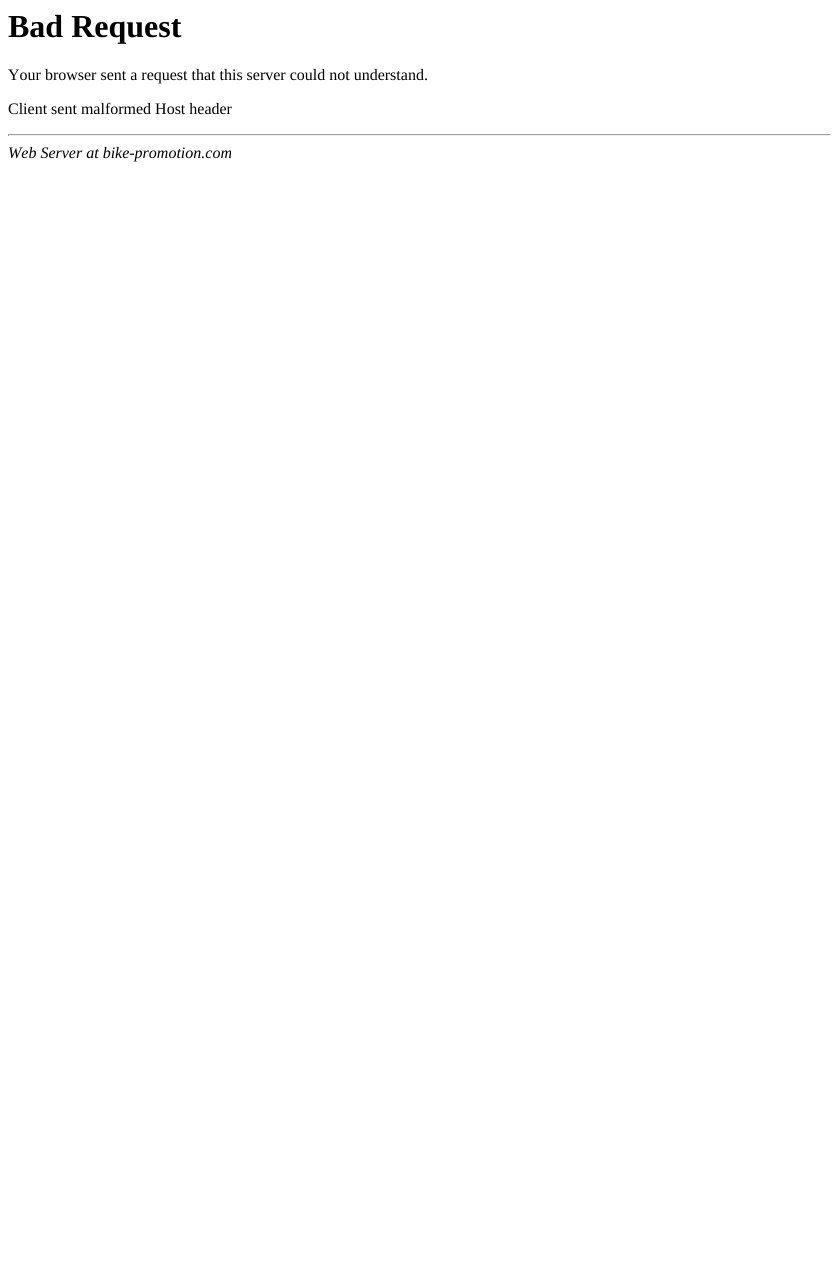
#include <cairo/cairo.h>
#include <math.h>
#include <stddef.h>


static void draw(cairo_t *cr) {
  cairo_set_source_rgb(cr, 1, 1, 1);
  cairo_paint(cr);
  cairo_set_source_rgb(cr, 159 / 255.0, 159 / 255.0, 159 / 255.0);
  cairo_rectangle(cr, 8, 134, 823, 1);
  cairo_fill(cr);
  cairo_set_source_rgb(cr, 238 / 255.0, 238 / 255.0, 238 / 255.0);
  cairo_rectangle(cr, 830, 134, 1, 2);
  cairo_fill(cr);
  cairo_rectangle(cr, 8, 135, 823, 1);
  cairo_fill(cr);
  cairo_set_source_rgb(cr, 159 / 255.0, 159 / 255.0, 159 / 255.0);
  cairo_rectangle(cr, 8, 134, 1, 2);
  cairo_fill(cr);
  cairo_select_font_face(cr, "Liberation Serif", CAIRO_FONT_SLANT_NORMAL, CAIRO_FONT_WEIGHT_BOLD);
  cairo_set_font_size(cr, 32);
  cairo_set_source_rgb(cr, 0, 0, 0);
  cairo_move_to(cr, 8, 37);
  cairo_show_text(cr, "Bad Request");
  cairo_select_font_face(cr, "Liberation Serif", CAIRO_FONT_SLANT_NORMAL, CAIRO_FONT_WEIGHT_NORMAL);
  cairo_set_font_size(cr, 16);
  cairo_move_to(cr, 8, 80);
  cairo_show_text(cr, "Your browser sent a request that this server could not understand.");
  cairo_move_to(cr, 8, 114);
  cairo_show_text(cr, "Client sent malformed Host header");
  cairo_select_font_face(cr, "Liberation Serif", CAIRO_FONT_SLANT_ITALIC, CAIRO_FONT_WEIGHT_NORMAL);
  cairo_move_to(cr, 8, 158);
  cairo_show_text(cr, "Web Server at bike-promotion.com");
}

int main(void) {
  cairo_surface_t *surface = cairo_image_surface_create(CAIRO_FORMAT_RGB24, 839, 1281);
  cairo_t *cr = cairo_create(surface);
  cairo_font_options_t *options = cairo_font_options_create();
  cairo_font_options_set_hint_metrics(options, CAIRO_HINT_METRICS_OFF);
  cairo_font_options_set_hint_style(options, CAIRO_HINT_STYLE_NONE);
  cairo_set_font_options(cr, options);
  cairo_set_miter_limit(cr, 4);
  draw(cr);
  cairo_surface_write_to_png(surface, "out.png");
  cairo_font_options_destroy(options);
  cairo_destroy(cr);
  cairo_surface_destroy(surface);
  return 0;
}
